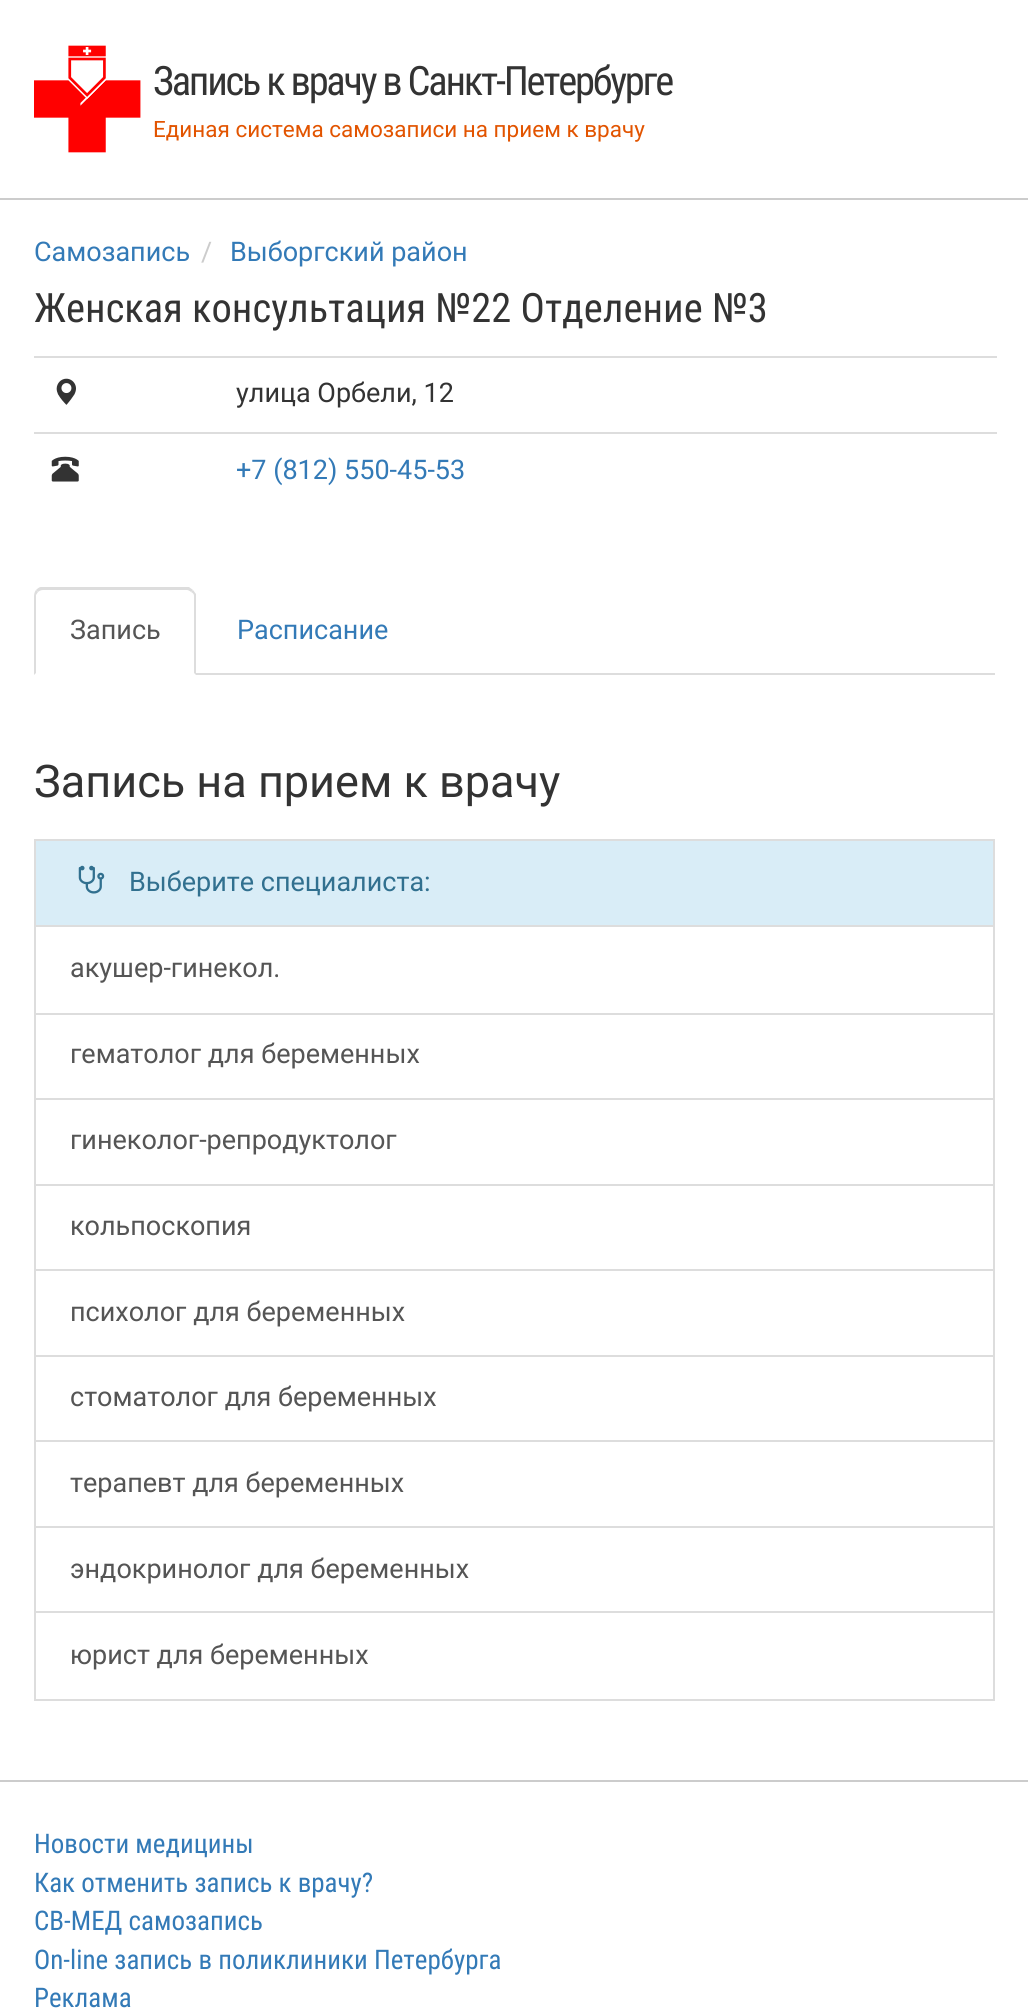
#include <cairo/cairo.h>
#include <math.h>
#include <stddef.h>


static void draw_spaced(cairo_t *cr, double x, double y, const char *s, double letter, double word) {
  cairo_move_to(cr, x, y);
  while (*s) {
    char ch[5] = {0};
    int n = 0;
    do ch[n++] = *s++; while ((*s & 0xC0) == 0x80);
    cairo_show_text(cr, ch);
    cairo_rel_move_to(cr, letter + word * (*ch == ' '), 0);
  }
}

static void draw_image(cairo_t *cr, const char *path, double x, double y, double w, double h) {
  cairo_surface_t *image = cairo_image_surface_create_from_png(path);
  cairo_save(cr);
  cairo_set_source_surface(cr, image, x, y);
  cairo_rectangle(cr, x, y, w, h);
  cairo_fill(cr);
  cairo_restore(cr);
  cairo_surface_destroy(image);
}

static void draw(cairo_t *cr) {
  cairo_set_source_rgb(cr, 1, 1, 1);
  cairo_paint(cr);
  draw_image(cr, "images/1.png", 34, 45, 107, 108);
  cairo_set_source_rgb(cr, 204 / 255.0, 204 / 255.0, 204 / 255.0);
  cairo_rectangle(cr, 0, 198, 1028, 2);
  cairo_fill(cr);
  draw_image(cr, "images/2.png", 56, 378, 20, 27);
  cairo_set_source_rgb(cr, 221 / 255.0, 221 / 255.0, 221 / 255.0);
  cairo_rectangle(cr, 34, 356, 963, 2);
  cairo_fill(cr);
  draw_image(cr, "images/3.png", 51, 456, 28, 26);
  cairo_rectangle(cr, 34, 432, 963, 2);
  cairo_fill(cr);
  cairo_rectangle(cr, 196, 673, 799, 2);
  cairo_fill(cr);
  cairo_new_path(cr);
  cairo_move_to(cr, 43, 590);
  cairo_curve_to(cr, 41, 590, 39, 591, 38, 592);
  cairo_line_to(cr, 36, 590);
  cairo_curve_to(cr, 37, 589, 39, 587, 41, 587);
  cairo_line_to(cr, 189, 587);
  cairo_line_to(cr, 193, 590);
  cairo_line_to(cr, 191, 592);
  cairo_curve_to(cr, 190, 591, 188, 590, 187, 590);
  cairo_close_path(cr);
  cairo_fill(cr);
  cairo_new_path(cr);
  cairo_move_to(cr, 196, 594);
  cairo_line_to(cr, 196, 675);
  cairo_line_to(cr, 194, 673);
  cairo_line_to(cr, 194, 596);
  cairo_curve_to(cr, 194, 594, 193, 593, 191, 592);
  cairo_line_to(cr, 193, 590);
  cairo_close_path(cr);
  cairo_fill(cr);
  cairo_new_path(cr);
  cairo_move_to(cr, 34, 675);
  cairo_line_to(cr, 34, 596);
  cairo_curve_to(cr, 34, 594, 35, 591, 36, 590);
  cairo_line_to(cr, 38, 592);
  cairo_line_to(cr, 36, 595);
  cairo_line_to(cr, 36, 673);
  cairo_close_path(cr);
  cairo_fill(cr);
  cairo_set_source_rgb(cr, 217 / 255.0, 237 / 255.0, 247 / 255.0);
  cairo_rectangle(cr, 35, 840, 959, 86);
  cairo_fill_preserve(cr);
  cairo_set_source_rgb(cr, 221 / 255.0, 221 / 255.0, 221 / 255.0);
  cairo_stroke(cr);
  draw_image(cr, "images/4.png", 78, 865, 27, 29);
  cairo_rectangle(cr, 35, 926, 959, 88);
  cairo_stroke(cr);
  cairo_rectangle(cr, 35, 1014, 959, 85);
  cairo_stroke(cr);
  cairo_rectangle(cr, 35, 1099, 959, 86);
  cairo_stroke(cr);
  cairo_rectangle(cr, 35, 1185, 959, 85);
  cairo_stroke(cr);
  cairo_rectangle(cr, 35, 1270, 959, 86);
  cairo_stroke(cr);
  cairo_rectangle(cr, 35, 1356, 959, 85);
  cairo_stroke(cr);
  cairo_rectangle(cr, 35, 1441, 959, 86);
  cairo_stroke(cr);
  cairo_rectangle(cr, 35, 1527, 959, 85);
  cairo_stroke(cr);
  cairo_rectangle(cr, 35, 1612, 959, 88);
  cairo_stroke(cr);
  cairo_set_source_rgb(cr, 204 / 255.0, 204 / 255.0, 204 / 255.0);
  cairo_rectangle(cr, 0, 1780, 1028, 2);
  cairo_fill(cr);
  cairo_select_font_face(cr, "Roboto Condensed", CAIRO_FONT_SLANT_NORMAL, CAIRO_FONT_WEIGHT_NORMAL);
  cairo_set_font_size(cr, 40.5);
  cairo_set_source_rgb(cr, 51 / 255.0, 51 / 255.0, 51 / 255.0);
  draw_spaced(cr, 153, 95, "Запись к врачу в Санкт-Петербурге", -2.25, 0);
  cairo_select_font_face(cr, "Roboto", CAIRO_FONT_SLANT_NORMAL, CAIRO_FONT_WEIGHT_NORMAL);
  cairo_set_font_size(cr, 22.5);
  cairo_set_source_rgb(cr, 226 / 255.0, 84 / 255.0, 0);
  cairo_move_to(cr, 153, 137);
  cairo_show_text(cr, "Единая система самозаписи на прием к врачу");
  cairo_set_font_size(cr, 27);
  cairo_set_source_rgb(cr, 51 / 255.0, 122 / 255.0, 183 / 255.0);
  cairo_move_to(cr, 34, 261);
  cairo_show_text(cr, "Самозапись");
  cairo_set_source_rgb(cr, 204 / 255.0, 204 / 255.0, 204 / 255.0);
  cairo_move_to(cr, 201, 261);
  cairo_show_text(cr, "/");
  cairo_set_source_rgb(cr, 51 / 255.0, 122 / 255.0, 183 / 255.0);
  cairo_move_to(cr, 230, 261);
  cairo_show_text(cr, "Выборгский район");
  cairo_select_font_face(cr, "Roboto Condensed", CAIRO_FONT_SLANT_NORMAL, CAIRO_FONT_WEIGHT_NORMAL);
  cairo_set_font_size(cr, 40.5);
  cairo_set_source_rgb(cr, 51 / 255.0, 51 / 255.0, 51 / 255.0);
  cairo_move_to(cr, 34, 322);
  cairo_show_text(cr, "Женская консультация №22 Отделение №3");
  cairo_select_font_face(cr, "Roboto", CAIRO_FONT_SLANT_NORMAL, CAIRO_FONT_WEIGHT_NORMAL);
  cairo_set_font_size(cr, 27);
  cairo_move_to(cr, 236, 402);
  cairo_show_text(cr, "улица Орбели, 12");
  cairo_set_source_rgb(cr, 51 / 255.0, 122 / 255.0, 183 / 255.0);
  cairo_move_to(cr, 236, 479);
  cairo_show_text(cr, "+7 (812) 550-45-53");
  cairo_set_source_rgb(cr, 85 / 255.0, 85 / 255.0, 85 / 255.0);
  cairo_move_to(cr, 70, 639);
  cairo_show_text(cr, "Запись");
  cairo_set_source_rgb(cr, 51 / 255.0, 122 / 255.0, 183 / 255.0);
  cairo_move_to(cr, 237, 639);
  cairo_show_text(cr, "Расписание");
  cairo_set_font_size(cr, 45);
  cairo_set_source_rgb(cr, 51 / 255.0, 51 / 255.0, 51 / 255.0);
  cairo_move_to(cr, 34, 797);
  cairo_show_text(cr, "Запись на прием к врачу");
  cairo_set_font_size(cr, 27);
  cairo_set_source_rgb(cr, 49 / 255.0, 112 / 255.0, 143 / 255.0);
  cairo_move_to(cr, 129, 891);
  cairo_show_text(cr, "Выберите специалиста:");
  cairo_set_source_rgb(cr, 85 / 255.0, 85 / 255.0, 85 / 255.0);
  cairo_move_to(cr, 70, 977);
  cairo_show_text(cr, "акушер-гинекол.");
  cairo_move_to(cr, 70, 1063);
  cairo_show_text(cr, "гематолог для беременных");
  cairo_move_to(cr, 70, 1149);
  cairo_show_text(cr, "гинеколог-репродуктолог");
  cairo_move_to(cr, 70, 1235);
  cairo_show_text(cr, "кольпоскопия");
  cairo_move_to(cr, 70, 1321);
  cairo_show_text(cr, "психолог для беременных");
  cairo_move_to(cr, 70, 1406);
  cairo_show_text(cr, "стоматолог для беременных");
  cairo_move_to(cr, 70, 1492);
  cairo_show_text(cr, "терапевт для беременных");
  cairo_move_to(cr, 70, 1578);
  cairo_show_text(cr, "эндокринолог для беременных");
  cairo_move_to(cr, 70, 1664);
  cairo_show_text(cr, "юрист для беременных");
  cairo_select_font_face(cr, "Roboto Condensed", CAIRO_FONT_SLANT_NORMAL, CAIRO_FONT_WEIGHT_NORMAL);
  cairo_set_source_rgb(cr, 51 / 255.0, 122 / 255.0, 183 / 255.0);
  cairo_move_to(cr, 34, 1853);
  cairo_show_text(cr, "Новости медицины");
  cairo_move_to(cr, 34, 1892);
  cairo_show_text(cr, "Как отменить запись к врачу?");
  cairo_move_to(cr, 34, 1930);
  cairo_show_text(cr, "СВ-МЕД самозапись");
  cairo_move_to(cr, 34, 1969);
  cairo_show_text(cr, "On-line запись в поликлиники Петербурга");
  cairo_move_to(cr, 34, 2007);
  cairo_show_text(cr, "Реклама");
}

int main(void) {
  cairo_surface_t *surface = cairo_image_surface_create(CAIRO_FORMAT_RGB24, 1028, 2009);
  cairo_t *cr = cairo_create(surface);
  cairo_font_options_t *options = cairo_font_options_create();
  cairo_font_options_set_hint_metrics(options, CAIRO_HINT_METRICS_OFF);
  cairo_font_options_set_hint_style(options, CAIRO_HINT_STYLE_NONE);
  cairo_set_font_options(cr, options);
  cairo_set_miter_limit(cr, 4);
  draw(cr);
  cairo_surface_write_to_png(surface, "out.png");
  cairo_font_options_destroy(options);
  cairo_destroy(cr);
  cairo_surface_destroy(surface);
  return 0;
}
